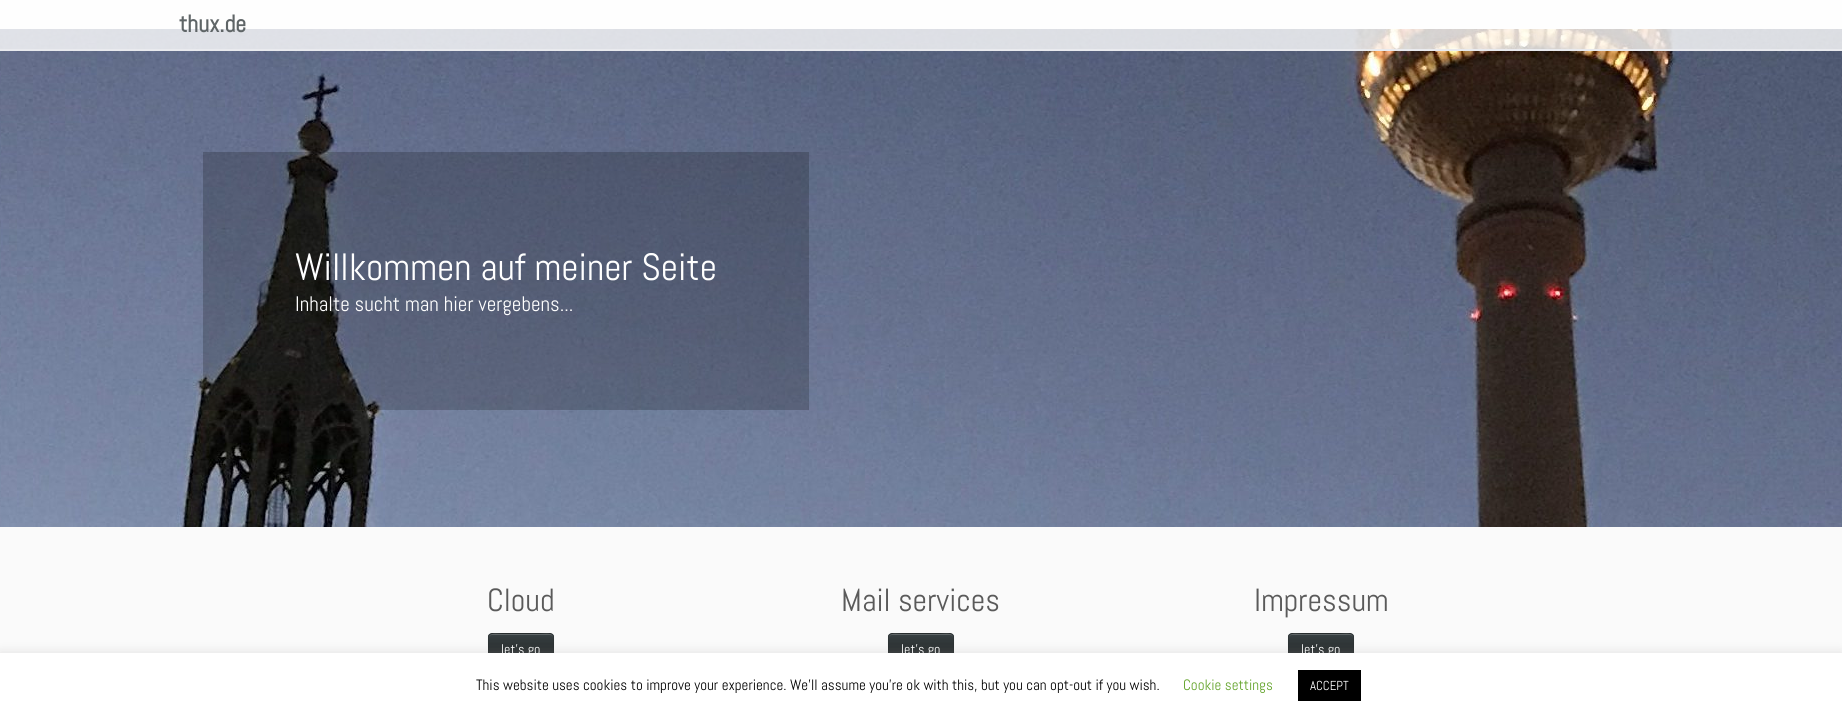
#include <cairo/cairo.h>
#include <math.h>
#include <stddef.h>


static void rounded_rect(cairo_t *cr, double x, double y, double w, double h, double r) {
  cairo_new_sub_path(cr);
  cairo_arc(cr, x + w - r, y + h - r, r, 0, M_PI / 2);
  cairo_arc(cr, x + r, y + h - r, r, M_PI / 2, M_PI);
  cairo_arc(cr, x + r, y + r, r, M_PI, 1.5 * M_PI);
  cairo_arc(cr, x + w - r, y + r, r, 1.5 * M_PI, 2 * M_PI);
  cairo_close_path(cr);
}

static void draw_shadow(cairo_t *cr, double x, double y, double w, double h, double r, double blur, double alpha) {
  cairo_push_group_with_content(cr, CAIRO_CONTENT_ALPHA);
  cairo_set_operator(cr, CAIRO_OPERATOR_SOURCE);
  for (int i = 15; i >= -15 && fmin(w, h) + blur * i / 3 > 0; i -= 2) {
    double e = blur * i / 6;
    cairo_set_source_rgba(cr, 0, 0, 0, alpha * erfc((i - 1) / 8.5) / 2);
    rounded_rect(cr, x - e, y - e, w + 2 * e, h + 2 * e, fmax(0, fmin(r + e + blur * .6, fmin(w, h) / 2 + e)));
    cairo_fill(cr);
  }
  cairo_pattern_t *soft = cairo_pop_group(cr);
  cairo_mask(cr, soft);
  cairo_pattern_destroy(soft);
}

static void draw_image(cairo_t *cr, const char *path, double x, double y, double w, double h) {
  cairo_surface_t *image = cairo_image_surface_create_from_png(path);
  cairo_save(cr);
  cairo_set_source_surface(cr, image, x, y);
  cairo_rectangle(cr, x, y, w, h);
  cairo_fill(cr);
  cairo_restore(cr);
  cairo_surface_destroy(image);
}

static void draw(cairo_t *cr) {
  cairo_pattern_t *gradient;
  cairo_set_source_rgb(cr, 250 / 255.0, 250 / 255.0, 250 / 255.0);
  cairo_paint(cr);
  draw_image(cr, "images/1.png", 0, 29, 1842, 498);
  cairo_set_source_rgba(cr, 1, 1, 1, 0.8);
  cairo_rectangle(cr, 0, 0, 1842, 49);
  cairo_fill(cr);
  cairo_set_source_rgb(cr, 233 / 255.0, 234 / 255.0, 238 / 255.0);
  cairo_rectangle(cr, 0, 49, 1842, 2);
  cairo_fill(cr);
  cairo_set_source_rgba(cr, 0, 0, 0, 0.2);
  cairo_rectangle(cr, 203, 152, 606, 258);
  cairo_fill(cr);
  cairo_set_source_rgb(cr, 43 / 255.0, 49 / 255.0, 50 / 255.0);
  rounded_rect(cr, 488, 633, 66, 32, 4);
  cairo_fill(cr);
  cairo_save(cr);
  rounded_rect(cr, 488, 633, 66, 32, 4);
  cairo_clip(cr);
  gradient = cairo_pattern_create_linear(521, 634, 521, 664);
  cairo_pattern_add_color_stop_rgba(gradient, 0, 57 / 255.0, 65 / 255.0, 67 / 255.0, 1);
  cairo_pattern_add_color_stop_rgba(gradient, 1, 22 / 255.0, 25 / 255.0, 26 / 255.0, 1);
  cairo_set_source(cr, gradient);
  cairo_pattern_destroy(gradient);
  cairo_rectangle(cr, 488, 634, 66, 19);
  cairo_fill(cr);
  cairo_restore(cr);
  cairo_set_source_rgb(cr, 96 / 255.0, 102 / 255.0, 104 / 255.0);
  cairo_new_path(cr);
  cairo_move_to(cr, 492, 635);
  cairo_line_to(cr, 550, 635);
  cairo_curve_to(cr, 552, 635, 553, 636, 553, 638);
  cairo_curve_to(cr, 553, 632, 545, 634, 540, 634);
  cairo_line_to(cr, 502, 634);
  cairo_curve_to(cr, 497, 634, 489, 632, 489, 638);
  cairo_curve_to(cr, 489, 636, 490, 635, 492, 635);
  cairo_close_path(cr);
  cairo_fill(cr);
  cairo_new_path(cr);
  cairo_move_to(cr, 489.5, 663.5);
  cairo_curve_to(cr, 487.5, 661, 488.5, 652, 488.5, 649);
  cairo_curve_to(cr, 488.5, 632.5, 485.5, 633.5, 501.5, 633.5);
  cairo_line_to(cr, 540.5, 633.5);
  cairo_curve_to(cr, 556.5, 633.5, 553.5, 632.5, 553.5, 649);
  cairo_curve_to(cr, 553.5, 652, 554.5, 661, 552.5, 663.5);
  cairo_set_source_rgba(cr, 0, 0, 0, 0.1);
  cairo_set_line_width(cr, 1);
  cairo_stroke(cr);
  cairo_set_source_rgb(cr, 43 / 255.0, 49 / 255.0, 50 / 255.0);
  rounded_rect(cr, 888, 633, 66, 32, 4);
  cairo_fill(cr);
  cairo_save(cr);
  rounded_rect(cr, 888, 633, 66, 32, 4);
  cairo_clip(cr);
  gradient = cairo_pattern_create_linear(921, 634, 921, 664);
  cairo_pattern_add_color_stop_rgba(gradient, 0, 57 / 255.0, 65 / 255.0, 67 / 255.0, 1);
  cairo_pattern_add_color_stop_rgba(gradient, 1, 22 / 255.0, 25 / 255.0, 26 / 255.0, 1);
  cairo_set_source(cr, gradient);
  cairo_pattern_destroy(gradient);
  cairo_rectangle(cr, 888, 634, 66, 19);
  cairo_fill(cr);
  cairo_restore(cr);
  cairo_set_source_rgb(cr, 96 / 255.0, 102 / 255.0, 104 / 255.0);
  cairo_new_path(cr);
  cairo_move_to(cr, 892, 635);
  cairo_line_to(cr, 950, 635);
  cairo_curve_to(cr, 952, 635, 953, 636, 953, 638);
  cairo_curve_to(cr, 953, 632, 945, 634, 940, 634);
  cairo_line_to(cr, 902, 634);
  cairo_curve_to(cr, 897, 634, 889, 632, 889, 638);
  cairo_curve_to(cr, 889, 636, 890, 635, 892, 635);
  cairo_close_path(cr);
  cairo_fill(cr);
  cairo_new_path(cr);
  cairo_move_to(cr, 889.5, 663.5);
  cairo_curve_to(cr, 887.5, 661, 888.5, 652, 888.5, 649);
  cairo_curve_to(cr, 888.5, 632.5, 885.5, 633.5, 901.5, 633.5);
  cairo_line_to(cr, 940.5, 633.5);
  cairo_curve_to(cr, 956.5, 633.5, 953.5, 632.5, 953.5, 649);
  cairo_curve_to(cr, 953.5, 652, 954.5, 661, 952.5, 663.5);
  cairo_set_source_rgba(cr, 0, 0, 0, 0.1);
  cairo_stroke(cr);
  cairo_set_source_rgb(cr, 43 / 255.0, 49 / 255.0, 50 / 255.0);
  rounded_rect(cr, 1288, 633, 66, 32, 4);
  cairo_fill(cr);
  cairo_save(cr);
  rounded_rect(cr, 1288, 633, 66, 32, 4);
  cairo_clip(cr);
  gradient = cairo_pattern_create_linear(1321, 634, 1321, 664);
  cairo_pattern_add_color_stop_rgba(gradient, 0, 57 / 255.0, 65 / 255.0, 67 / 255.0, 1);
  cairo_pattern_add_color_stop_rgba(gradient, 1, 22 / 255.0, 25 / 255.0, 26 / 255.0, 1);
  cairo_set_source(cr, gradient);
  cairo_pattern_destroy(gradient);
  cairo_rectangle(cr, 1288, 634, 66, 19);
  cairo_fill(cr);
  cairo_restore(cr);
  cairo_set_source_rgb(cr, 96 / 255.0, 102 / 255.0, 104 / 255.0);
  cairo_new_path(cr);
  cairo_move_to(cr, 1292, 635);
  cairo_line_to(cr, 1350, 635);
  cairo_curve_to(cr, 1352, 635, 1353, 636, 1353, 638);
  cairo_curve_to(cr, 1353, 632, 1345, 634, 1340, 634);
  cairo_line_to(cr, 1302, 634);
  cairo_curve_to(cr, 1297, 634, 1289, 632, 1289, 638);
  cairo_curve_to(cr, 1289, 636, 1290, 635, 1292, 635);
  cairo_close_path(cr);
  cairo_fill(cr);
  cairo_new_path(cr);
  cairo_move_to(cr, 1289.5, 663.5);
  cairo_curve_to(cr, 1287.5, 661, 1288.5, 652, 1288.5, 649);
  cairo_curve_to(cr, 1288.5, 632.5, 1285.5, 633.5, 1301.5, 633.5);
  cairo_line_to(cr, 1340.5, 633.5);
  cairo_curve_to(cr, 1356.5, 633.5, 1353.5, 632.5, 1353.5, 649);
  cairo_curve_to(cr, 1353.5, 652, 1354.5, 661, 1352.5, 663.5);
  cairo_set_source_rgba(cr, 0, 0, 0, 0.1);
  cairo_stroke(cr);
  cairo_set_source_rgb(cr, 172 / 255.0, 171 / 255.0, 171 / 255.0);
  draw_shadow(cr, 0, 652, 1842, 65, 0, 5, 0.3);
  cairo_set_source_rgb(cr, 1, 1, 1);
  cairo_rectangle(cr, 0, 653, 1842, 65);
  cairo_fill(cr);
  cairo_set_source_rgb(cr, 0, 0, 0);
  cairo_rectangle(cr, 1298, 670, 63, 31);
  cairo_fill(cr);
  cairo_select_font_face(cr, "Abel", CAIRO_FONT_SLANT_NORMAL, CAIRO_FONT_WEIGHT_BOLD);
  cairo_set_font_size(cr, 24);
  cairo_set_source_rgb(cr, 95 / 255.0, 101 / 255.0, 103 / 255.0);
  cairo_move_to(cr, 179, 32);
  cairo_show_text(cr, "thux.de");
  cairo_select_font_face(cr, "Abel", CAIRO_FONT_SLANT_NORMAL, CAIRO_FONT_WEIGHT_NORMAL);
  cairo_set_font_size(cr, 38);
  cairo_set_source_rgb(cr, 1, 1, 1);
  cairo_move_to(cr, 295, 280);
  cairo_show_text(cr, "Willkommen auf meiner Seite");
  cairo_set_font_size(cr, 21);
  cairo_move_to(cr, 295, 311);
  cairo_show_text(cr, "Inhalte sucht man hier vergebens...");
  cairo_set_font_size(cr, 32);
  cairo_set_source_rgb(cr, 90 / 255.0, 90 / 255.0, 90 / 255.0);
  cairo_move_to(cr, 487, 611);
  cairo_show_text(cr, "Cloud");
  cairo_set_font_size(cr, 14);
  cairo_set_source_rgb(cr, 1, 1, 1);
  cairo_move_to(cr, 501, 654);
  cairo_show_text(cr, "let's go");
  cairo_set_font_size(cr, 32);
  cairo_set_source_rgb(cr, 90 / 255.0, 90 / 255.0, 90 / 255.0);
  cairo_move_to(cr, 841, 611);
  cairo_show_text(cr, "Mail services");
  cairo_set_font_size(cr, 14);
  cairo_set_source_rgb(cr, 1, 1, 1);
  cairo_move_to(cr, 901, 654);
  cairo_show_text(cr, "let's go");
  cairo_set_font_size(cr, 32);
  cairo_set_source_rgb(cr, 90 / 255.0, 90 / 255.0, 90 / 255.0);
  cairo_move_to(cr, 1254, 611);
  cairo_show_text(cr, "Impressum");
  cairo_set_font_size(cr, 14);
  cairo_set_source_rgb(cr, 1, 1, 1);
  cairo_move_to(cr, 1301, 654);
  cairo_show_text(cr, "let's go");
  cairo_set_font_size(cr, 15);
  cairo_set_source_rgb(cr, 0, 0, 0);
  cairo_move_to(cr, 476, 690);
  cairo_show_text(cr, "This website uses cookies to improve your experience. We'll assume you're ok with this, but you can opt-out if you wish.");
  cairo_set_source_rgb(cr, 98 / 255.0, 163 / 255.0, 41 / 255.0);
  cairo_move_to(cr, 1183, 690);
  cairo_show_text(cr, "Cookie settings");
  cairo_set_font_size(cr, 13);
  cairo_set_source_rgb(cr, 1, 1, 1);
  cairo_move_to(cr, 1310, 690);
  cairo_show_text(cr, "ACCEPT");
}

int main(void) {
  cairo_surface_t *surface = cairo_image_surface_create(CAIRO_FORMAT_RGB24, 1842, 718);
  cairo_t *cr = cairo_create(surface);
  cairo_font_options_t *options = cairo_font_options_create();
  cairo_font_options_set_hint_metrics(options, CAIRO_HINT_METRICS_OFF);
  cairo_font_options_set_hint_style(options, CAIRO_HINT_STYLE_NONE);
  cairo_set_font_options(cr, options);
  cairo_set_miter_limit(cr, 4);
  draw(cr);
  cairo_surface_write_to_png(surface, "out.png");
  cairo_font_options_destroy(options);
  cairo_destroy(cr);
  cairo_surface_destroy(surface);
  return 0;
}
